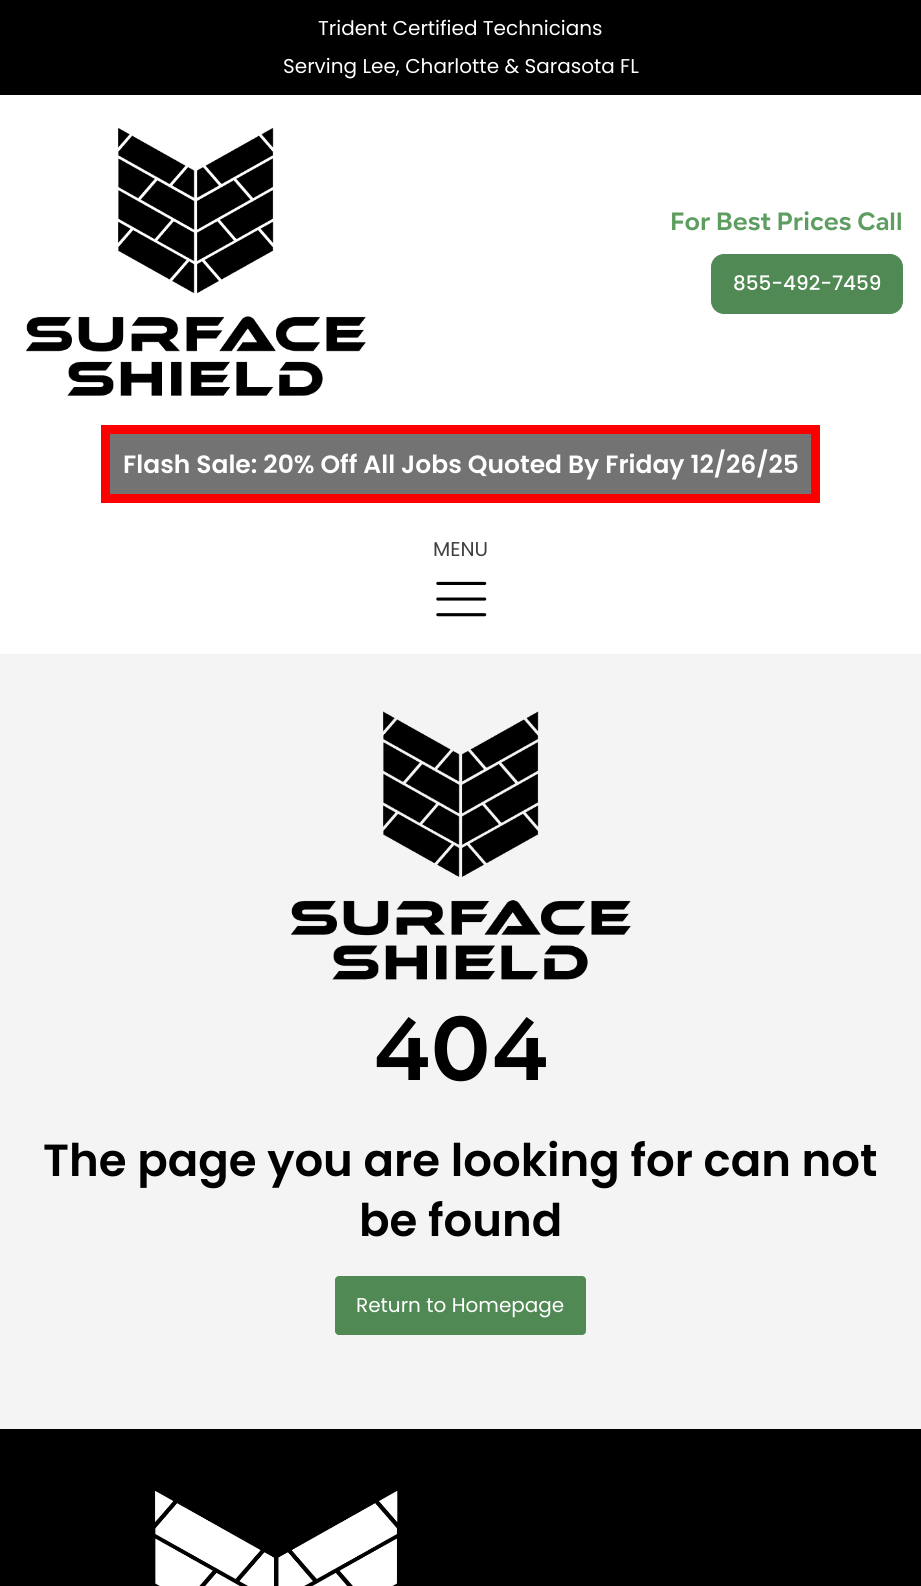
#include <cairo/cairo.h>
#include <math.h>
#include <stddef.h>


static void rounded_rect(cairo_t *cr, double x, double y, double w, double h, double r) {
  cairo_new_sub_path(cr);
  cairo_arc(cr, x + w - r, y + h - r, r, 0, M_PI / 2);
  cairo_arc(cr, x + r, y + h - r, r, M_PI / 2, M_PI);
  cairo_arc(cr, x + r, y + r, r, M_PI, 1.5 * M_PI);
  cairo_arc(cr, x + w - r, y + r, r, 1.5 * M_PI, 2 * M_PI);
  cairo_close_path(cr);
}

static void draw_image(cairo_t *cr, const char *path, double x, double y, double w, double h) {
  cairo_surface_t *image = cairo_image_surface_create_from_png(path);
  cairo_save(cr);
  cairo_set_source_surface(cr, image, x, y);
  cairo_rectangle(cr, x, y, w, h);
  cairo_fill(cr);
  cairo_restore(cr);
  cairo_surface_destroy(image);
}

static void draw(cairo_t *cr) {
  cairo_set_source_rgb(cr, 1, 1, 1);
  cairo_paint(cr);
  cairo_set_source_rgb(cr, 0, 0, 0);
  cairo_rectangle(cr, 0, 0, 921, 95);
  cairo_fill(cr);
  draw_image(cr, "images/1.png", 26, 127, 340, 269);
  cairo_set_source_rgb(cr, 81 / 255.0, 137 / 255.0, 84 / 255.0);
  rounded_rect(cr, 711.5, 254.5, 191, 59, 12.5);
  cairo_fill_preserve(cr);
  cairo_set_line_width(cr, 1);
  cairo_stroke(cr);
  cairo_set_source_rgb(cr, 115 / 255.0, 115 / 255.0, 115 / 255.0);
  cairo_rectangle(cr, 105.5, 429.5, 710, 69);
  cairo_fill_preserve(cr);
  cairo_set_source_rgb(cr, 252 / 255.0, 0, 0);
  cairo_set_line_width(cr, 9);
  cairo_stroke(cr);
  draw_image(cr, "images/2.png", 436, 581, 51, 36);
  cairo_set_source_rgb(cr, 244 / 255.0, 244 / 255.0, 244 / 255.0);
  cairo_rectangle(cr, 0, 654, 921, 775);
  cairo_fill(cr);
  draw_image(cr, "images/3.png", 291, 711, 340, 269);
  cairo_set_source_rgb(cr, 81 / 255.0, 137 / 255.0, 84 / 255.0);
  rounded_rect(cr, 335.5, 1276.5, 250, 58, 3.5);
  cairo_fill_preserve(cr);
  cairo_set_line_width(cr, 1);
  cairo_stroke(cr);
  cairo_set_source_rgb(cr, 0, 0, 0);
  cairo_rectangle(cr, 0, 1429, 921, 157);
  cairo_fill(cr);
  draw_image(cr, "images/4.png", 155, 1491, 243, 95);
  cairo_select_font_face(cr, "Poppins", CAIRO_FONT_SLANT_NORMAL, CAIRO_FONT_WEIGHT_NORMAL);
  cairo_set_font_size(cr, 20);
  cairo_set_source_rgb(cr, 1, 1, 1);
  cairo_move_to(cr, 318, 35);
  cairo_show_text(cr, "Trident Certified Technicians");
  cairo_move_to(cr, 283, 73);
  cairo_show_text(cr, "Serving Lee, Charlotte & Sarasota FL");
  cairo_select_font_face(cr, "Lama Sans", CAIRO_FONT_SLANT_NORMAL, CAIRO_FONT_WEIGHT_BOLD);
  cairo_set_font_size(cr, 25);
  cairo_set_source_rgb(cr, 93 / 255.0, 157 / 255.0, 96 / 255.0);
  cairo_move_to(cr, 670, 230);
  cairo_show_text(cr, "For Best Prices Call");
  cairo_select_font_face(cr, "Poppins Medium", CAIRO_FONT_SLANT_NORMAL, CAIRO_FONT_WEIGHT_NORMAL);
  cairo_set_font_size(cr, 20);
  cairo_set_source_rgb(cr, 1, 1, 1);
  cairo_move_to(cr, 733, 290);
  cairo_show_text(cr, "855-492-7459");
  cairo_select_font_face(cr, "Poppins SemiBold", CAIRO_FONT_SLANT_NORMAL, CAIRO_FONT_WEIGHT_NORMAL);
  cairo_set_font_size(cr, 25);
  cairo_move_to(cr, 123, 473);
  cairo_show_text(cr, "Flash Sale: 20% Off All Jobs Quoted By Friday 12/26/25");
  cairo_select_font_face(cr, "Poppins", CAIRO_FONT_SLANT_NORMAL, CAIRO_FONT_WEIGHT_NORMAL);
  cairo_set_font_size(cr, 20);
  cairo_set_source_rgb(cr, 64 / 255.0, 64 / 255.0, 64 / 255.0);
  cairo_move_to(cr, 433, 556);
  cairo_show_text(cr, "MENU");
  cairo_select_font_face(cr, "Lama Sans", CAIRO_FONT_SLANT_NORMAL, CAIRO_FONT_WEIGHT_BOLD);
  cairo_set_font_size(cr, 90);
  cairo_set_source_rgb(cr, 0, 0, 0);
  cairo_move_to(cr, 374, 1080);
  cairo_show_text(cr, "404");
  cairo_select_font_face(cr, "Poppins SemiBold", CAIRO_FONT_SLANT_NORMAL, CAIRO_FONT_WEIGHT_NORMAL);
  cairo_set_font_size(cr, 45);
  cairo_move_to(cr, 43, 1176);
  cairo_show_text(cr, "The page you are looking for can not");
  cairo_move_to(cr, 359, 1236);
  cairo_show_text(cr, "be found");
  cairo_select_font_face(cr, "Poppins", CAIRO_FONT_SLANT_NORMAL, CAIRO_FONT_WEIGHT_NORMAL);
  cairo_set_font_size(cr, 20);
  cairo_set_source_rgb(cr, 1, 1, 1);
  cairo_move_to(cr, 356, 1312);
  cairo_show_text(cr, "Return to Homepage");
}

int main(void) {
  cairo_surface_t *surface = cairo_image_surface_create(CAIRO_FORMAT_RGB24, 921, 1586);
  cairo_t *cr = cairo_create(surface);
  cairo_font_options_t *options = cairo_font_options_create();
  cairo_font_options_set_hint_metrics(options, CAIRO_HINT_METRICS_OFF);
  cairo_font_options_set_hint_style(options, CAIRO_HINT_STYLE_NONE);
  cairo_set_font_options(cr, options);
  cairo_set_miter_limit(cr, 4);
  draw(cr);
  cairo_surface_write_to_png(surface, "out.png");
  cairo_font_options_destroy(options);
  cairo_destroy(cr);
  cairo_surface_destroy(surface);
  return 0;
}
